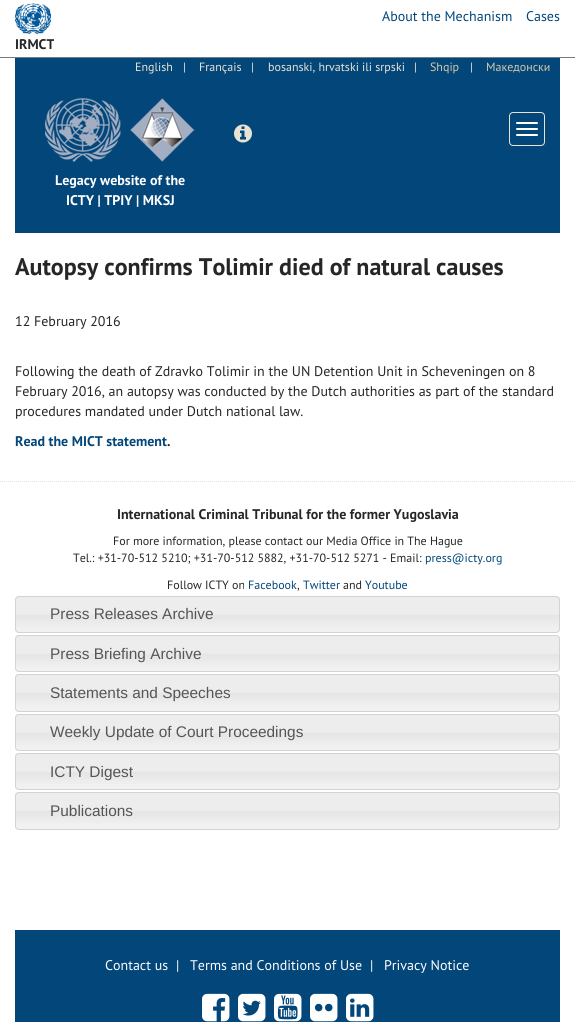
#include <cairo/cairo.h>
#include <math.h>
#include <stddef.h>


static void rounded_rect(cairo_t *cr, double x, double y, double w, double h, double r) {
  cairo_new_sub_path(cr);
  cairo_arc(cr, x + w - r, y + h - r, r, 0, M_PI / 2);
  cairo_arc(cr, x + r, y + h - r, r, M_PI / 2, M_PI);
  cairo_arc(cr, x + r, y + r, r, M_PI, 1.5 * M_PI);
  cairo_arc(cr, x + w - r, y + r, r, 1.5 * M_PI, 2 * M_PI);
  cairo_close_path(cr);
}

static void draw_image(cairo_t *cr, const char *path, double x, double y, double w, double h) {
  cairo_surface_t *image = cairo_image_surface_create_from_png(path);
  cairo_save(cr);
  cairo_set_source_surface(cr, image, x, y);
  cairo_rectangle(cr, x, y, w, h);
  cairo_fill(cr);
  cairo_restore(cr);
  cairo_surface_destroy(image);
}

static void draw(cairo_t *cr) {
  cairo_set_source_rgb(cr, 1, 1, 1);
  cairo_paint(cr);
  cairo_set_source_rgb(cr, 118 / 255.0, 125 / 255.0, 128 / 255.0);
  cairo_rectangle(cr, 0, 57, 575, 1);
  cairo_fill(cr);
  draw_image(cr, "images/1.png", 15, 3, 36, 31);
  cairo_set_source_rgb(cr, 3 / 255.0, 70 / 255.0, 122 / 255.0);
  cairo_rectangle(cr, 15, 58, 545, 175);
  cairo_fill(cr);
  draw_image(cr, "images/2.png", 234, 124, 18, 19);
  rounded_rect(cr, 509.5, 112.5, 35, 33, 3.5);
  cairo_set_source_rgb(cr, 233 / 255.0, 227 / 255.0, 211 / 255.0);
  cairo_set_line_width(cr, 1);
  cairo_stroke(cr);
  cairo_set_source_rgb(cr, 1, 1, 1);
  rounded_rect(cr, 516, 122, 22, 2, 1);
  cairo_fill(cr);
  rounded_rect(cr, 516, 128, 22, 2, 1);
  cairo_fill(cr);
  rounded_rect(cr, 516, 134, 22, 2, 1);
  cairo_fill(cr);
  draw_image(cr, "images/3.png", 45, 98, 150, 64);
  cairo_new_path(cr);
  cairo_move_to(cr, 0, 481.5);
  cairo_line_to(cr, 575, 481.5);
  cairo_set_source_rgb(cr, 233 / 255.0, 227 / 255.0, 211 / 255.0);
  cairo_set_dash(cr, (double[]){1, 1}, 2, 0);
  cairo_stroke(cr);
  draw_image(cr, "images/4.png", 15, 596, 545, 37);
  rounded_rect(cr, 15.5, 596.5, 544, 36, 3.5);
  cairo_set_source_rgb(cr, 211 / 255.0, 211 / 255.0, 211 / 255.0);
  cairo_set_dash(cr, NULL, 0, 0);
  cairo_stroke(cr);
  draw_image(cr, "images/4.png", 15, 635, 545, 37);
  rounded_rect(cr, 15.5, 635.5, 544, 36, 3.5);
  cairo_stroke(cr);
  draw_image(cr, "images/5.png", 15, 674, 545, 38);
  rounded_rect(cr, 15.5, 674.5, 544, 37, 3.5);
  cairo_stroke(cr);
  draw_image(cr, "images/4.png", 15, 714, 545, 37);
  rounded_rect(cr, 15.5, 714.5, 544, 36, 3.5);
  cairo_stroke(cr);
  draw_image(cr, "images/4.png", 15, 753, 545, 37);
  rounded_rect(cr, 15.5, 753.5, 544, 36, 3.5);
  cairo_stroke(cr);
  draw_image(cr, "images/5.png", 15, 792, 545, 38);
  rounded_rect(cr, 15.5, 792.5, 544, 37, 3.5);
  cairo_stroke(cr);
  cairo_set_source_rgb(cr, 3 / 255.0, 70 / 255.0, 122 / 255.0);
  cairo_rectangle(cr, 15, 930, 545, 92);
  cairo_fill(cr);
  draw_image(cr, "images/6.png", 202, 993, 28, 29);
  draw_image(cr, "images/7.png", 238, 993, 28, 29);
  draw_image(cr, "images/8.png", 274, 993, 28, 29);
  draw_image(cr, "images/9.png", 310, 993, 28, 29);
  draw_image(cr, "images/10.png", 346, 993, 28, 29);
  cairo_select_font_face(cr, "PT Sans", CAIRO_FONT_SLANT_NORMAL, CAIRO_FONT_WEIGHT_NORMAL);
  cairo_set_font_size(cr, 14);
  cairo_move_to(cr, 382, 21);
  cairo_show_text(cr, "About the Mechanism");
  cairo_move_to(cr, 526, 21);
  cairo_show_text(cr, "Cases");
  cairo_select_font_face(cr, "PT Sans", CAIRO_FONT_SLANT_NORMAL, CAIRO_FONT_WEIGHT_BOLD);
  cairo_set_source_rgb(cr, 36 / 255.0, 38 / 255.0, 39 / 255.0);
  cairo_move_to(cr, 15, 49);
  cairo_show_text(cr, "IRMCT");
  cairo_select_font_face(cr, "PT Sans", CAIRO_FONT_SLANT_NORMAL, CAIRO_FONT_WEIGHT_NORMAL);
  cairo_set_font_size(cr, 12);
  cairo_set_source_rgb(cr, 233 / 255.0, 227 / 255.0, 211 / 255.0);
  cairo_move_to(cr, 135, 71);
  cairo_show_text(cr, "English");
  cairo_move_to(cr, 183, 71);
  cairo_show_text(cr, "|");
  cairo_move_to(cr, 199, 71);
  cairo_show_text(cr, "Français");
  cairo_move_to(cr, 251, 71);
  cairo_show_text(cr, "|");
  cairo_move_to(cr, 268, 71);
  cairo_show_text(cr, "bosanski, hrvatski ili srpski");
  cairo_move_to(cr, 414, 71);
  cairo_show_text(cr, "|");
  cairo_set_source_rgb(cr, 213 / 255.0, 201 / 255.0, 170 / 255.0);
  cairo_move_to(cr, 430, 71);
  cairo_show_text(cr, "Shqip");
  cairo_set_source_rgb(cr, 233 / 255.0, 227 / 255.0, 211 / 255.0);
  cairo_move_to(cr, 470, 71);
  cairo_show_text(cr, "|");
  cairo_set_source_rgb(cr, 213 / 255.0, 201 / 255.0, 170 / 255.0);
  cairo_move_to(cr, 486, 71);
  cairo_show_text(cr, "Македонски");
  cairo_select_font_face(cr, "PT Sans", CAIRO_FONT_SLANT_NORMAL, CAIRO_FONT_WEIGHT_BOLD);
  cairo_set_font_size(cr, 14);
  cairo_set_source_rgb(cr, 1, 1, 1);
  cairo_move_to(cr, 55, 185);
  cairo_show_text(cr, "Legacy website of the");
  cairo_move_to(cr, 66, 205);
  cairo_show_text(cr, "ICTY | TPIY | MKSJ");
  cairo_set_font_size(cr, 24);
  cairo_set_source_rgb(cr, 36 / 255.0, 38 / 255.0, 39 / 255.0);
  cairo_move_to(cr, 15, 275);
  cairo_show_text(cr, "Autopsy confirms Tolimir died of natural causes");
  cairo_select_font_face(cr, "PT Sans", CAIRO_FONT_SLANT_NORMAL, CAIRO_FONT_WEIGHT_NORMAL);
  cairo_set_font_size(cr, 14);
  cairo_move_to(cr, 15, 326);
  cairo_show_text(cr, "12 February 2016");
  cairo_move_to(cr, 15, 376);
  cairo_show_text(cr, "Following the death of Zdravko Tolimir in the UN Detention Unit in Scheveningen on 8");
  cairo_move_to(cr, 15, 396);
  cairo_show_text(cr, "February 2016, an autopsy was conducted by the Dutch authorities as part of the standard");
  cairo_move_to(cr, 15, 416);
  cairo_show_text(cr, "procedures mandated under Dutch national law.");
  cairo_select_font_face(cr, "PT Sans", CAIRO_FONT_SLANT_NORMAL, CAIRO_FONT_WEIGHT_BOLD);
  cairo_set_source_rgb(cr, 3 / 255.0, 70 / 255.0, 122 / 255.0);
  cairo_move_to(cr, 15, 446);
  cairo_show_text(cr, "Read the MICT statement");
  cairo_set_source_rgb(cr, 36 / 255.0, 38 / 255.0, 39 / 255.0);
  cairo_move_to(cr, 167, 446);
  cairo_show_text(cr, ".");
  cairo_move_to(cr, 117, 519);
  cairo_show_text(cr, "International Criminal Tribunal for the former Yugoslavia");
  cairo_select_font_face(cr, "PT Sans", CAIRO_FONT_SLANT_NORMAL, CAIRO_FONT_WEIGHT_NORMAL);
  cairo_set_font_size(cr, 12);
  cairo_move_to(cr, 113, 545);
  cairo_show_text(cr, "For more information, please contact our Media Office in The Hague");
  cairo_move_to(cr, 73, 562);
  cairo_show_text(cr, "Tel.: +31-70-512 5210; +31-70-512 5882, +31-70-512 5271 - Email:");
  cairo_set_source_rgb(cr, 3 / 255.0, 70 / 255.0, 122 / 255.0);
  cairo_move_to(cr, 425, 562);
  cairo_show_text(cr, "press@icty.org");
  cairo_set_source_rgb(cr, 36 / 255.0, 38 / 255.0, 39 / 255.0);
  cairo_move_to(cr, 167, 589);
  cairo_show_text(cr, "Follow ICTY on");
  cairo_set_source_rgb(cr, 3 / 255.0, 70 / 255.0, 122 / 255.0);
  cairo_move_to(cr, 248, 589);
  cairo_show_text(cr, "Facebook");
  cairo_set_source_rgb(cr, 36 / 255.0, 38 / 255.0, 39 / 255.0);
  cairo_move_to(cr, 297, 589);
  cairo_show_text(cr, ",");
  cairo_set_source_rgb(cr, 3 / 255.0, 70 / 255.0, 122 / 255.0);
  cairo_move_to(cr, 303, 589);
  cairo_show_text(cr, "Twitter");
  cairo_set_source_rgb(cr, 36 / 255.0, 38 / 255.0, 39 / 255.0);
  cairo_move_to(cr, 343, 589);
  cairo_show_text(cr, "and");
  cairo_set_source_rgb(cr, 3 / 255.0, 70 / 255.0, 122 / 255.0);
  cairo_move_to(cr, 365, 589);
  cairo_show_text(cr, "Youtube");
  cairo_select_font_face(cr, "Liberation Sans", CAIRO_FONT_SLANT_NORMAL, CAIRO_FONT_WEIGHT_NORMAL);
  cairo_set_font_size(cr, 15.4);
  cairo_set_source_rgb(cr, 85 / 255.0, 85 / 255.0, 85 / 255.0);
  cairo_move_to(cr, 50, 619);
  cairo_show_text(cr, "Press Releases Archive");
  cairo_move_to(cr, 50, 659);
  cairo_show_text(cr, "Press Briefing Archive");
  cairo_move_to(cr, 50, 698);
  cairo_show_text(cr, "Statements and Speeches");
  cairo_move_to(cr, 50, 737);
  cairo_show_text(cr, "Weekly Update of Court Proceedings");
  cairo_move_to(cr, 50, 777);
  cairo_show_text(cr, "ICTY Digest");
  cairo_move_to(cr, 50, 816);
  cairo_show_text(cr, "Publications");
  cairo_select_font_face(cr, "PT Sans", CAIRO_FONT_SLANT_NORMAL, CAIRO_FONT_WEIGHT_NORMAL);
  cairo_set_font_size(cr, 14);
  cairo_set_source_rgb(cr, 1, 1, 1);
  cairo_move_to(cr, 105, 970);
  cairo_show_text(cr, "Contact us");
  cairo_move_to(cr, 176, 970);
  cairo_show_text(cr, "|");
  cairo_move_to(cr, 190, 970);
  cairo_show_text(cr, "Terms and Conditions of Use");
  cairo_move_to(cr, 370, 970);
  cairo_show_text(cr, "|");
  cairo_move_to(cr, 384, 970);
  cairo_show_text(cr, "Privacy Notice");
}

int main(void) {
  cairo_surface_t *surface = cairo_image_surface_create(CAIRO_FORMAT_RGB24, 575, 1022);
  cairo_t *cr = cairo_create(surface);
  cairo_font_options_t *options = cairo_font_options_create();
  cairo_font_options_set_hint_metrics(options, CAIRO_HINT_METRICS_OFF);
  cairo_font_options_set_hint_style(options, CAIRO_HINT_STYLE_NONE);
  cairo_set_font_options(cr, options);
  cairo_set_miter_limit(cr, 4);
  draw(cr);
  cairo_surface_write_to_png(surface, "out.png");
  cairo_font_options_destroy(options);
  cairo_destroy(cr);
  cairo_surface_destroy(surface);
  return 0;
}
